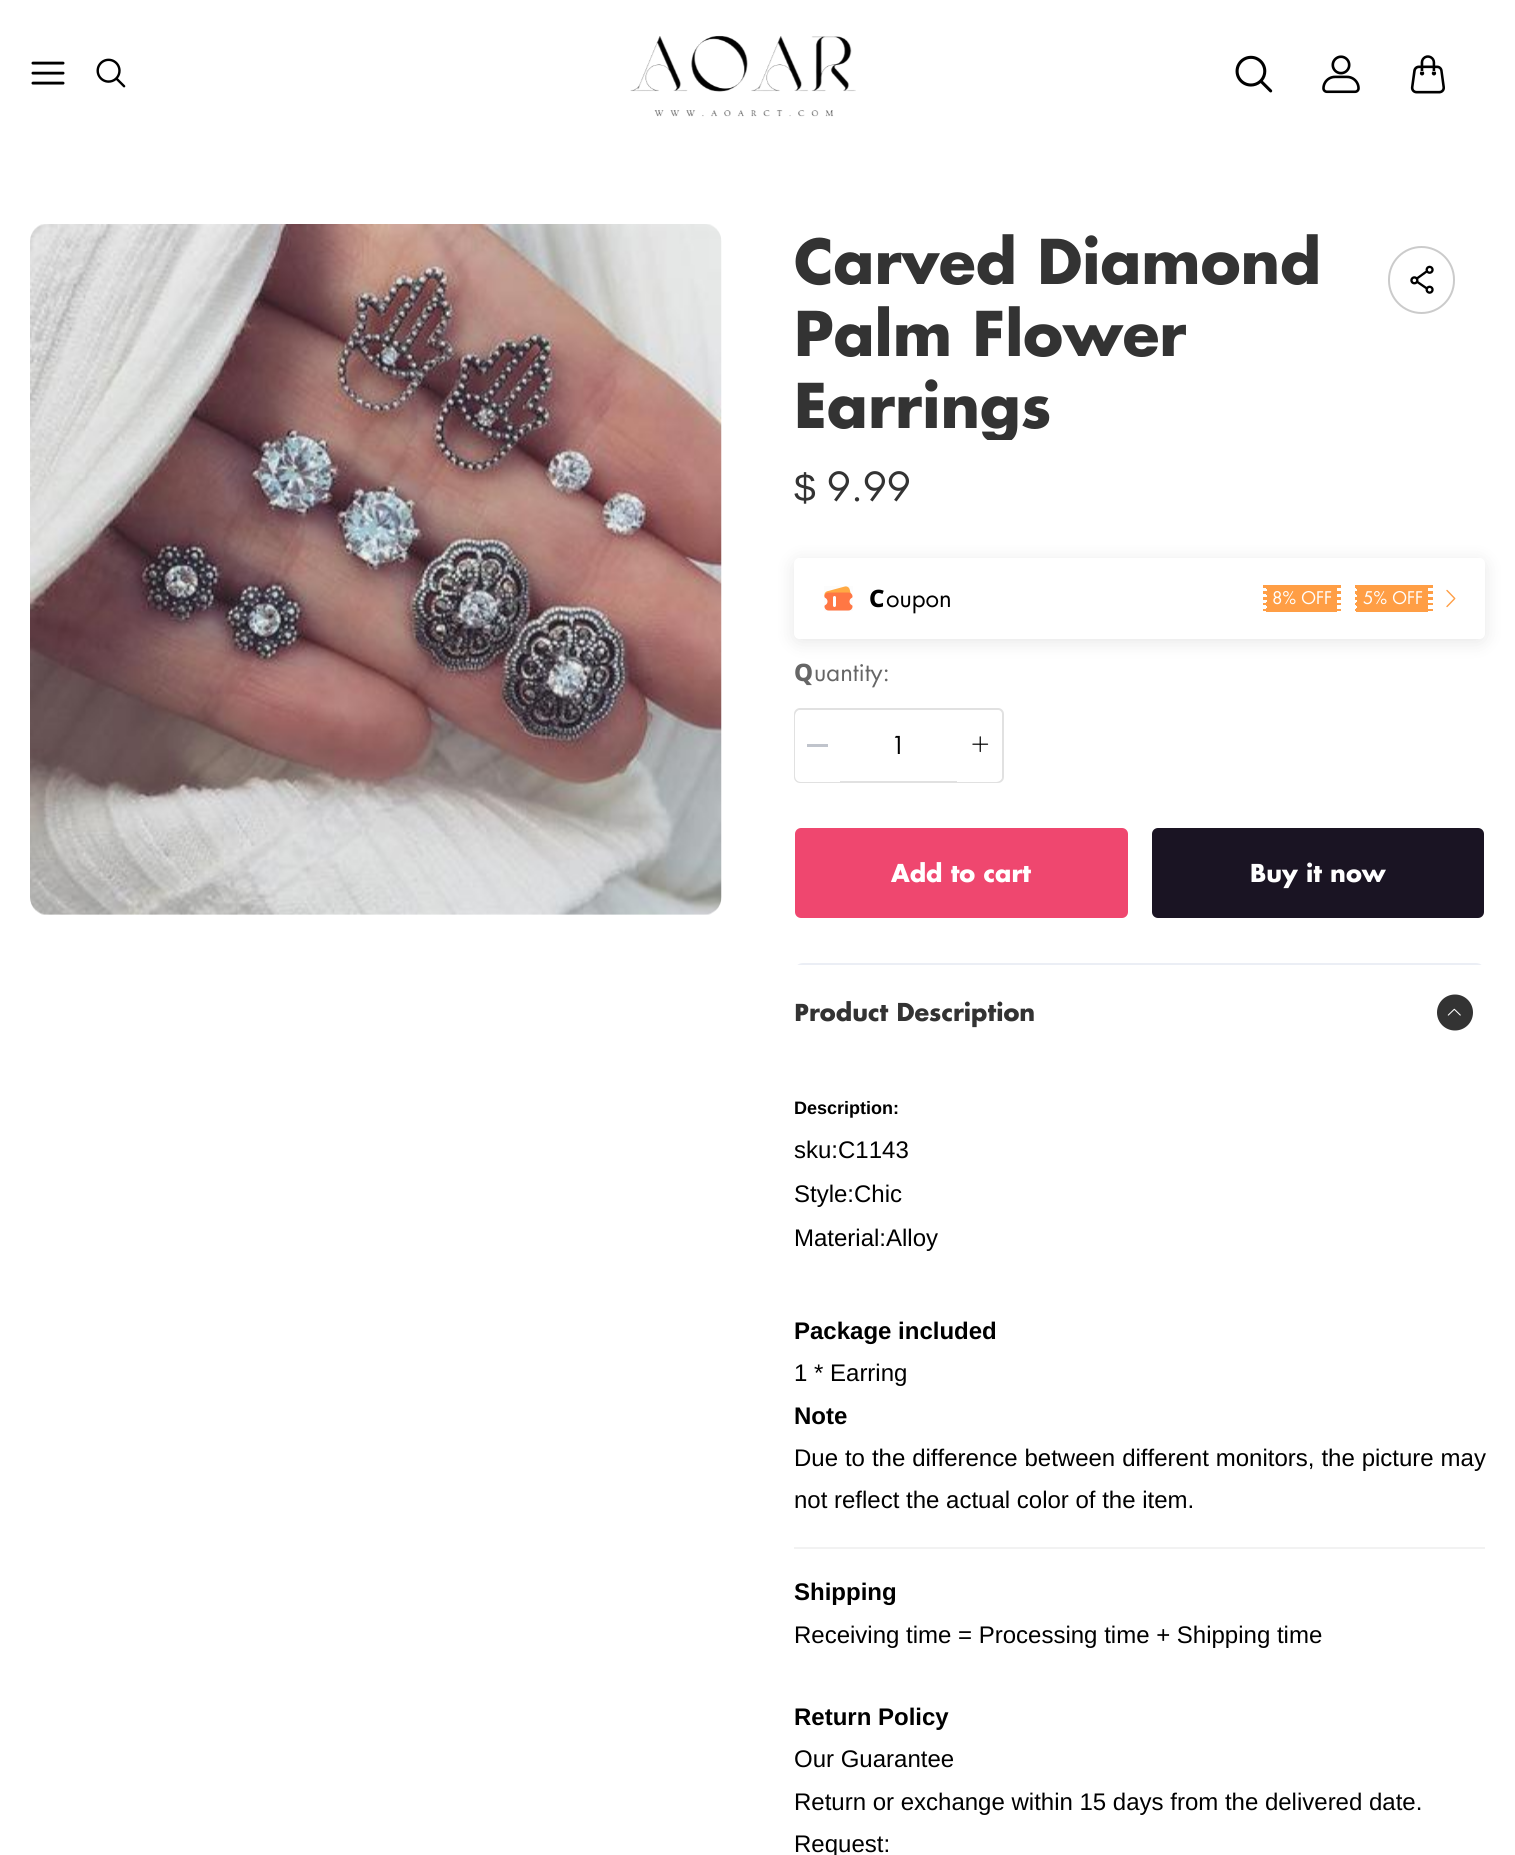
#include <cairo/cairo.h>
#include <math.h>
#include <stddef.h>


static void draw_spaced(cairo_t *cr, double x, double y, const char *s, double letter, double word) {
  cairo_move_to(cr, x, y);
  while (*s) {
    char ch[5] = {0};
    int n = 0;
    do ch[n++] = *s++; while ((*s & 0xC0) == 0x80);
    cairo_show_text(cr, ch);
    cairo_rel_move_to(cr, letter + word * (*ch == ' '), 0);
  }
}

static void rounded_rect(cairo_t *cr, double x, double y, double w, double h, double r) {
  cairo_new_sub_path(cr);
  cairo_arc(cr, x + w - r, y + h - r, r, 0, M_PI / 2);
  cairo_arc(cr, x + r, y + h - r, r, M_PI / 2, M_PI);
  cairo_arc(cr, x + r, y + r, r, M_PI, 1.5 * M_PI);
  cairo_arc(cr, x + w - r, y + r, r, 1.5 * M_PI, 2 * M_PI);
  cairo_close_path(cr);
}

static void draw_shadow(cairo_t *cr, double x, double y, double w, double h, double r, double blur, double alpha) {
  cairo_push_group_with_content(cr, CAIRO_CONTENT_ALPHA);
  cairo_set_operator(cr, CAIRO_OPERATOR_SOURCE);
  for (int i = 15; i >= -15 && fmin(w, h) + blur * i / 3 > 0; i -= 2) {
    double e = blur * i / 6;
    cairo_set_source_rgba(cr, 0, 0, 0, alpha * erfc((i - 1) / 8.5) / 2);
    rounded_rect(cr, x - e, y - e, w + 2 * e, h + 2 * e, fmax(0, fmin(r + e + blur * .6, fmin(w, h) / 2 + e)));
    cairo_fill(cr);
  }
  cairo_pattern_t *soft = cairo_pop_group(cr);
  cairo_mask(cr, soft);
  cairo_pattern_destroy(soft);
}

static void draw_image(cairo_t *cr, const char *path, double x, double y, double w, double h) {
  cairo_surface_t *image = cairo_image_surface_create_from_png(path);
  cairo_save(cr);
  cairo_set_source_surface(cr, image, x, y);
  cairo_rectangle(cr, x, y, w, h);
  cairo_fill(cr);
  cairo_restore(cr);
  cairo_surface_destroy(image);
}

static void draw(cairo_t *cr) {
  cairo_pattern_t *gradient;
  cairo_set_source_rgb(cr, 1, 1, 1);
  cairo_paint(cr);
  draw_image(cr, "images/1.png", 31, 61, 34, 24);
  draw_image(cr, "images/2.png", 96, 58, 30, 30);
  draw_image(cr, "images/3.png", 630, 35, 226, 82);
  draw_image(cr, "images/4.png", 1235, 55, 38, 38);
  draw_image(cr, "images/5.png", 1322, 55, 38, 39);
  draw_image(cr, "images/6.png", 1410, 55, 35, 39);
  draw_image(cr, "images/7.png", 30, 224, 692, 691);
  rounded_rect(cr, 1389, 247, 65, 66, 32.5);
  cairo_set_source_rgb(cr, 203 / 255.0, 203 / 255.0, 203 / 255.0);
  cairo_stroke(cr);
  draw_image(cr, "images/8.png", 1410, 265, 24, 29);
  cairo_save(cr);
  cairo_set_fill_rule(cr, CAIRO_FILL_RULE_EVEN_ODD);
  cairo_new_path(cr);
  cairo_move_to(cr, 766, 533);
  cairo_line_to(cr, 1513, 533);
  cairo_line_to(cr, 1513, 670);
  cairo_line_to(cr, 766, 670);
  cairo_close_path(cr);
  cairo_move_to(cr, 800, 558);
  cairo_line_to(cr, 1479, 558);
  cairo_curve_to(cr, 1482.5, 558, 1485, 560.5, 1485, 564);
  cairo_line_to(cr, 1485, 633);
  cairo_curve_to(cr, 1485, 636.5, 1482.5, 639, 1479, 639);
  cairo_line_to(cr, 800, 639);
  cairo_curve_to(cr, 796.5, 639, 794, 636.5, 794, 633);
  cairo_line_to(cr, 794, 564);
  cairo_curve_to(cr, 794, 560.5, 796.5, 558, 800, 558);
  cairo_close_path(cr);
  cairo_clip(cr);
  cairo_set_source_rgb(cr, 0, 0, 0);
  draw_shadow(cr, 794, 561, 691, 81, 6, 9, 0.1);
  cairo_restore(cr);
  draw_image(cr, "images/9.png", 824, 586, 29, 25);
  cairo_set_source_rgb(cr, 1, 158 / 255.0, 69 / 255.0);
  cairo_rectangle(cr, 1269, 585, 68, 27);
  cairo_fill(cr);
  gradient = cairo_pattern_create_radial(1264, 590, 0, 1264, 590, 2.8);
  cairo_pattern_add_color_stop_rgba(gradient, 1, 1, 158 / 255.0, 69 / 255.0, 0);
  cairo_pattern_add_color_stop_rgba(gradient, 1, 1, 158 / 255.0, 69 / 255.0, 1);
  cairo_set_source(cr, gradient);
  cairo_pattern_destroy(gradient);
  cairo_rectangle(cr, 1263, 588, 6, 3);
  cairo_fill(cr);
  gradient = cairo_pattern_create_radial(1264, 596, 0, 1264, 596, 2.8);
  cairo_pattern_add_color_stop_rgba(gradient, 1, 1, 158 / 255.0, 69 / 255.0, 0);
  cairo_pattern_add_color_stop_rgba(gradient, 1, 1, 158 / 255.0, 69 / 255.0, 1);
  cairo_set_source(cr, gradient);
  cairo_pattern_destroy(gradient);
  cairo_rectangle(cr, 1263, 594, 6, 3);
  cairo_fill(cr);
  gradient = cairo_pattern_create_radial(1264, 601, 0, 1264, 601, 2.8);
  cairo_pattern_add_color_stop_rgba(gradient, 1, 1, 158 / 255.0, 69 / 255.0, 0);
  cairo_pattern_add_color_stop_rgba(gradient, 1, 1, 158 / 255.0, 69 / 255.0, 1);
  cairo_set_source(cr, gradient);
  cairo_pattern_destroy(gradient);
  cairo_rectangle(cr, 1263, 600, 6, 3);
  cairo_fill(cr);
  gradient = cairo_pattern_create_radial(1264, 607, 0, 1264, 607, 2.8);
  cairo_pattern_add_color_stop_rgba(gradient, 1, 1, 158 / 255.0, 69 / 255.0, 0);
  cairo_pattern_add_color_stop_rgba(gradient, 1, 1, 158 / 255.0, 69 / 255.0, 1);
  cairo_set_source(cr, gradient);
  cairo_pattern_destroy(gradient);
  cairo_rectangle(cr, 1263, 605, 6, 4);
  cairo_fill(cr);
  gradient = cairo_pattern_create_radial(1264, 613, 0, 1264, 613, 2.8);
  cairo_pattern_add_color_stop_rgba(gradient, 1, 1, 158 / 255.0, 69 / 255.0, 0);
  cairo_pattern_add_color_stop_rgba(gradient, 1, 1, 158 / 255.0, 69 / 255.0, 1);
  cairo_set_source(cr, gradient);
  cairo_pattern_destroy(gradient);
  cairo_rectangle(cr, 1263, 611, 6, 1);
  cairo_fill(cr);
  gradient = cairo_pattern_create_linear(1266, 586, 1266, 591);
  cairo_pattern_add_color_stop_rgba(gradient, 0.5, 1, 158 / 255.0, 69 / 255.0, 1);
  cairo_pattern_add_color_stop_rgba(gradient, 0.5, 1, 158 / 255.0, 69 / 255.0, 0);
  cairo_pattern_add_color_stop_rgba(gradient, 1, 0, 0, 0, 0);
  cairo_set_source(cr, gradient);
  cairo_pattern_destroy(gradient);
  cairo_rectangle(cr, 1263, 585, 6, 3);
  cairo_fill(cr);
  gradient = cairo_pattern_create_linear(1266, 591, 1266, 597);
  cairo_pattern_add_color_stop_rgba(gradient, 0.5, 1, 158 / 255.0, 69 / 255.0, 1);
  cairo_pattern_add_color_stop_rgba(gradient, 0.5, 1, 158 / 255.0, 69 / 255.0, 0);
  cairo_pattern_add_color_stop_rgba(gradient, 1, 0, 0, 0, 0);
  cairo_set_source(cr, gradient);
  cairo_pattern_destroy(gradient);
  cairo_rectangle(cr, 1263, 591, 6, 3);
  cairo_fill(cr);
  gradient = cairo_pattern_create_linear(1266, 597, 1266, 603);
  cairo_pattern_add_color_stop_rgba(gradient, 0.5, 1, 158 / 255.0, 69 / 255.0, 1);
  cairo_pattern_add_color_stop_rgba(gradient, 0.5, 1, 158 / 255.0, 69 / 255.0, 0);
  cairo_pattern_add_color_stop_rgba(gradient, 1, 0, 0, 0, 0);
  cairo_set_source(cr, gradient);
  cairo_pattern_destroy(gradient);
  cairo_rectangle(cr, 1263, 597, 6, 3);
  cairo_fill(cr);
  gradient = cairo_pattern_create_linear(1266, 603, 1266, 608);
  cairo_pattern_add_color_stop_rgba(gradient, 0.5, 1, 158 / 255.0, 69 / 255.0, 1);
  cairo_pattern_add_color_stop_rgba(gradient, 0.5, 1, 158 / 255.0, 69 / 255.0, 0);
  cairo_pattern_add_color_stop_rgba(gradient, 1, 0, 0, 0, 0);
  cairo_set_source(cr, gradient);
  cairo_pattern_destroy(gradient);
  cairo_rectangle(cr, 1263, 603, 6, 2);
  cairo_fill(cr);
  gradient = cairo_pattern_create_linear(1266, 608, 1266, 614);
  cairo_pattern_add_color_stop_rgba(gradient, 0.5, 1, 158 / 255.0, 69 / 255.0, 1);
  cairo_pattern_add_color_stop_rgba(gradient, 0.5, 1, 158 / 255.0, 69 / 255.0, 0);
  cairo_pattern_add_color_stop_rgba(gradient, 1, 0, 0, 0, 0);
  cairo_set_source(cr, gradient);
  cairo_pattern_destroy(gradient);
  cairo_rectangle(cr, 1263, 609, 6, 2);
  cairo_fill(cr);
  gradient = cairo_pattern_create_linear(1338, 586, 1338, 591);
  cairo_pattern_add_color_stop_rgba(gradient, 0.5, 1, 158 / 255.0, 69 / 255.0, 1);
  cairo_pattern_add_color_stop_rgba(gradient, 0.5, 1, 158 / 255.0, 69 / 255.0, 0);
  cairo_pattern_add_color_stop_rgba(gradient, 1, 0, 0, 0, 0);
  cairo_set_source(cr, gradient);
  cairo_pattern_destroy(gradient);
  cairo_rectangle(cr, 1335, 585, 6, 3);
  cairo_fill(cr);
  gradient = cairo_pattern_create_linear(1338, 591, 1338, 597);
  cairo_pattern_add_color_stop_rgba(gradient, 0.5, 1, 158 / 255.0, 69 / 255.0, 1);
  cairo_pattern_add_color_stop_rgba(gradient, 0.5, 1, 158 / 255.0, 69 / 255.0, 0);
  cairo_pattern_add_color_stop_rgba(gradient, 1, 0, 0, 0, 0);
  cairo_set_source(cr, gradient);
  cairo_pattern_destroy(gradient);
  cairo_rectangle(cr, 1335, 591, 6, 3);
  cairo_fill(cr);
  gradient = cairo_pattern_create_linear(1338, 597, 1338, 603);
  cairo_pattern_add_color_stop_rgba(gradient, 0.5, 1, 158 / 255.0, 69 / 255.0, 1);
  cairo_pattern_add_color_stop_rgba(gradient, 0.5, 1, 158 / 255.0, 69 / 255.0, 0);
  cairo_pattern_add_color_stop_rgba(gradient, 1, 0, 0, 0, 0);
  cairo_set_source(cr, gradient);
  cairo_pattern_destroy(gradient);
  cairo_rectangle(cr, 1335, 597, 6, 3);
  cairo_fill(cr);
  gradient = cairo_pattern_create_linear(1338, 603, 1338, 608);
  cairo_pattern_add_color_stop_rgba(gradient, 0.5, 1, 158 / 255.0, 69 / 255.0, 1);
  cairo_pattern_add_color_stop_rgba(gradient, 0.5, 1, 158 / 255.0, 69 / 255.0, 0);
  cairo_pattern_add_color_stop_rgba(gradient, 1, 0, 0, 0, 0);
  cairo_set_source(cr, gradient);
  cairo_pattern_destroy(gradient);
  cairo_rectangle(cr, 1335, 603, 6, 2);
  cairo_fill(cr);
  gradient = cairo_pattern_create_linear(1338, 608, 1338, 614);
  cairo_pattern_add_color_stop_rgba(gradient, 0.5, 1, 158 / 255.0, 69 / 255.0, 1);
  cairo_pattern_add_color_stop_rgba(gradient, 0.5, 1, 158 / 255.0, 69 / 255.0, 0);
  cairo_pattern_add_color_stop_rgba(gradient, 1, 0, 0, 0, 0);
  cairo_set_source(cr, gradient);
  cairo_pattern_destroy(gradient);
  cairo_rectangle(cr, 1335, 609, 6, 2);
  cairo_fill(cr);
  cairo_set_source_rgb(cr, 1, 158 / 255.0, 69 / 255.0);
  cairo_rectangle(cr, 1361, 585, 67, 27);
  cairo_fill(cr);
  gradient = cairo_pattern_create_radial(1354, 590, 0, 1354, 590, 2.8);
  cairo_pattern_add_color_stop_rgba(gradient, 1, 1, 158 / 255.0, 69 / 255.0, 0);
  cairo_pattern_add_color_stop_rgba(gradient, 1, 1, 158 / 255.0, 69 / 255.0, 1);
  cairo_set_source(cr, gradient);
  cairo_pattern_destroy(gradient);
  cairo_rectangle(cr, 1355, 585, 6, 6);
  cairo_fill(cr);
  gradient = cairo_pattern_create_radial(1354, 596, 0, 1354, 596, 2.8);
  cairo_pattern_add_color_stop_rgba(gradient, 1, 1, 158 / 255.0, 69 / 255.0, 0);
  cairo_pattern_add_color_stop_rgba(gradient, 1, 1, 158 / 255.0, 69 / 255.0, 1);
  cairo_set_source(cr, gradient);
  cairo_pattern_destroy(gradient);
  cairo_rectangle(cr, 1355, 591, 6, 6);
  cairo_fill(cr);
  gradient = cairo_pattern_create_radial(1354, 601, 0, 1354, 601, 2.8);
  cairo_pattern_add_color_stop_rgba(gradient, 1, 1, 158 / 255.0, 69 / 255.0, 0);
  cairo_pattern_add_color_stop_rgba(gradient, 1, 1, 158 / 255.0, 69 / 255.0, 1);
  cairo_set_source(cr, gradient);
  cairo_pattern_destroy(gradient);
  cairo_rectangle(cr, 1355, 600, 6, 3);
  cairo_fill(cr);
  gradient = cairo_pattern_create_radial(1354, 607, 0, 1354, 607, 2.8);
  cairo_pattern_add_color_stop_rgba(gradient, 1, 1, 158 / 255.0, 69 / 255.0, 0);
  cairo_pattern_add_color_stop_rgba(gradient, 1, 1, 158 / 255.0, 69 / 255.0, 1);
  cairo_set_source(cr, gradient);
  cairo_pattern_destroy(gradient);
  cairo_rectangle(cr, 1355, 603, 6, 6);
  cairo_fill(cr);
  gradient = cairo_pattern_create_radial(1354, 613, 0, 1354, 613, 2.8);
  cairo_pattern_add_color_stop_rgba(gradient, 1, 1, 158 / 255.0, 69 / 255.0, 0);
  cairo_pattern_add_color_stop_rgba(gradient, 1, 1, 158 / 255.0, 69 / 255.0, 1);
  cairo_set_source(cr, gradient);
  cairo_pattern_destroy(gradient);
  cairo_rectangle(cr, 1355, 609, 6, 3);
  cairo_fill(cr);
  gradient = cairo_pattern_create_linear(1357, 597, 1357, 603);
  cairo_pattern_add_color_stop_rgba(gradient, 0.5, 1, 158 / 255.0, 69 / 255.0, 1);
  cairo_pattern_add_color_stop_rgba(gradient, 0.5, 1, 158 / 255.0, 69 / 255.0, 0);
  cairo_pattern_add_color_stop_rgba(gradient, 1, 0, 0, 0, 0);
  cairo_set_source(cr, gradient);
  cairo_pattern_destroy(gradient);
  cairo_rectangle(cr, 1355, 597, 6, 3);
  cairo_fill(cr);
  gradient = cairo_pattern_create_linear(1429, 586, 1429, 591);
  cairo_pattern_add_color_stop_rgba(gradient, 0.5, 1, 158 / 255.0, 69 / 255.0, 1);
  cairo_pattern_add_color_stop_rgba(gradient, 0.5, 1, 158 / 255.0, 69 / 255.0, 0);
  cairo_pattern_add_color_stop_rgba(gradient, 1, 0, 0, 0, 0);
  cairo_set_source(cr, gradient);
  cairo_pattern_destroy(gradient);
  cairo_rectangle(cr, 1427, 585, 6, 3);
  cairo_fill(cr);
  gradient = cairo_pattern_create_linear(1429, 591, 1429, 597);
  cairo_pattern_add_color_stop_rgba(gradient, 0.5, 1, 158 / 255.0, 69 / 255.0, 1);
  cairo_pattern_add_color_stop_rgba(gradient, 0.5, 1, 158 / 255.0, 69 / 255.0, 0);
  cairo_pattern_add_color_stop_rgba(gradient, 1, 0, 0, 0, 0);
  cairo_set_source(cr, gradient);
  cairo_pattern_destroy(gradient);
  cairo_rectangle(cr, 1427, 591, 6, 3);
  cairo_fill(cr);
  gradient = cairo_pattern_create_linear(1429, 597, 1429, 603);
  cairo_pattern_add_color_stop_rgba(gradient, 0.5, 1, 158 / 255.0, 69 / 255.0, 1);
  cairo_pattern_add_color_stop_rgba(gradient, 0.5, 1, 158 / 255.0, 69 / 255.0, 0);
  cairo_pattern_add_color_stop_rgba(gradient, 1, 0, 0, 0, 0);
  cairo_set_source(cr, gradient);
  cairo_pattern_destroy(gradient);
  cairo_rectangle(cr, 1427, 597, 6, 3);
  cairo_fill(cr);
  gradient = cairo_pattern_create_linear(1429, 603, 1429, 608);
  cairo_pattern_add_color_stop_rgba(gradient, 0.5, 1, 158 / 255.0, 69 / 255.0, 1);
  cairo_pattern_add_color_stop_rgba(gradient, 0.5, 1, 158 / 255.0, 69 / 255.0, 0);
  cairo_pattern_add_color_stop_rgba(gradient, 1, 0, 0, 0, 0);
  cairo_set_source(cr, gradient);
  cairo_pattern_destroy(gradient);
  cairo_rectangle(cr, 1427, 603, 6, 2);
  cairo_fill(cr);
  gradient = cairo_pattern_create_linear(1429, 608, 1429, 614);
  cairo_pattern_add_color_stop_rgba(gradient, 0.5, 1, 158 / 255.0, 69 / 255.0, 1);
  cairo_pattern_add_color_stop_rgba(gradient, 0.5, 1, 158 / 255.0, 69 / 255.0, 0);
  cairo_pattern_add_color_stop_rgba(gradient, 1, 0, 0, 0, 0);
  cairo_set_source(cr, gradient);
  cairo_pattern_destroy(gradient);
  cairo_rectangle(cr, 1427, 609, 6, 2);
  cairo_fill(cr);
  draw_image(cr, "images/10.png", 1446, 589, 10, 19);
  rounded_rect(cr, 795, 709, 208, 73, 5);
  cairo_set_source_rgb(cr, 225 / 255.0, 225 / 255.0, 225 / 255.0);
  cairo_stroke(cr);
  cairo_set_source_rgb(cr, 1, 1, 1);
  cairo_new_path(cr);
  cairo_move_to(cr, 801, 710);
  cairo_line_to(cr, 840, 710);
  cairo_line_to(cr, 840, 782);
  cairo_line_to(cr, 801, 782);
  cairo_curve_to(cr, 797.5, 782, 795, 779.5, 795, 776);
  cairo_line_to(cr, 795, 716);
  cairo_curve_to(cr, 795, 712.5, 797.5, 710, 801, 710);
  cairo_close_path(cr);
  cairo_fill(cr);
  cairo_set_source_rgb(cr, 192 / 255.0, 196 / 255.0, 204 / 255.0);
  cairo_rectangle(cr, 807, 744, 21, 3);
  cairo_fill(cr);
  cairo_set_source_rgb(cr, 1, 1, 1);
  cairo_new_path(cr);
  cairo_move_to(cr, 957, 710);
  cairo_line_to(cr, 996, 710);
  cairo_curve_to(cr, 999.5, 710, 1002, 712.5, 1002, 716);
  cairo_line_to(cr, 1002, 776);
  cairo_curve_to(cr, 1002, 779.5, 999.5, 782, 996, 782);
  cairo_line_to(cr, 957, 782);
  cairo_close_path(cr);
  cairo_fill(cr);
  draw_image(cr, "images/11.png", 972, 736, 17, 17);
  cairo_set_source_rgb(cr, 239 / 255.0, 71 / 255.0, 111 / 255.0);
  rounded_rect(cr, 796.5, 829.5, 330, 87, 4.5);
  cairo_fill_preserve(cr);
  cairo_set_line_width(cr, 3);
  cairo_stroke(cr);
  cairo_set_source_rgb(cr, 26 / 255.0, 20 / 255.0, 35 / 255.0);
  rounded_rect(cr, 1153.5, 829.5, 329, 87, 4.5);
  cairo_fill_preserve(cr);
  cairo_stroke(cr);
  cairo_save(cr);
  rounded_rect(cr, 794, 963, 691, 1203, 9);
  cairo_clip(cr);
  cairo_set_source_rgb(cr, 235 / 255.0, 238 / 255.0, 245 / 255.0);
  cairo_rectangle(cr, 794, 963, 691, 2);
  cairo_fill(cr);
  cairo_restore(cr);
  cairo_set_source_rgb(cr, 51 / 255.0, 51 / 255.0, 51 / 255.0);
  cairo_new_path(cr);
  cairo_move_to(cr, 1437, 1012.5);
  cairo_curve_to(cr, 1437, 1002.5, 1445, 994.5, 1455, 994.5);
  cairo_curve_to(cr, 1465, 994.5, 1473, 1002.5, 1473, 1012.5);
  cairo_curve_to(cr, 1473, 1022.5, 1465, 1030.5, 1455, 1030.5);
  cairo_curve_to(cr, 1445, 1030.5, 1437, 1022.5, 1437, 1012.5);
  cairo_close_path(cr);
  cairo_fill(cr);
  draw_image(cr, "images/12.png", 1447, 1008, 14, 8);
  cairo_set_source_rgb(cr, 242 / 255.0, 242 / 255.0, 242 / 255.0);
  cairo_rectangle(cr, 794, 1547, 691, 2);
  cairo_fill(cr);
  cairo_select_font_face(cr, "Futura", CAIRO_FONT_SLANT_NORMAL, CAIRO_FONT_WEIGHT_BOLD);
  cairo_set_font_size(cr, 60);
  cairo_set_source_rgb(cr, 51 / 255.0, 51 / 255.0, 51 / 255.0);
  cairo_move_to(cr, 794, 284);
  cairo_show_text(cr, "Carved Diamond");
  cairo_move_to(cr, 794, 356);
  cairo_show_text(cr, "Palm Flower");
  cairo_save(cr);
  cairo_rectangle(cr, 794, 224, 691, 216);
  cairo_clip(cr);
  cairo_move_to(cr, 794, 428);
  cairo_show_text(cr, "Earrings");
  cairo_restore(cr);
  cairo_select_font_face(cr, "Liberation Sans", CAIRO_FONT_SLANT_NORMAL, CAIRO_FONT_WEIGHT_NORMAL);
  cairo_set_font_size(cr, 39);
  cairo_move_to(cr, 794, 501);
  cairo_show_text(cr, "$");
  cairo_select_font_face(cr, "Futura", CAIRO_FONT_SLANT_NORMAL, CAIRO_FONT_WEIGHT_NORMAL);
  cairo_move_to(cr, 827, 501);
  cairo_show_text(cr, "9.99");
  cairo_select_font_face(cr, "Noto Sans ExtraBold", CAIRO_FONT_SLANT_NORMAL, CAIRO_FONT_WEIGHT_NORMAL);
  cairo_set_font_size(cr, 24);
  cairo_set_source_rgb(cr, 0, 0, 0);
  cairo_move_to(cr, 869, 607);
  cairo_show_text(cr, "C");
  cairo_select_font_face(cr, "Futura", CAIRO_FONT_SLANT_NORMAL, CAIRO_FONT_WEIGHT_NORMAL);
  cairo_move_to(cr, 886, 607);
  cairo_show_text(cr, "oupon");
  cairo_set_font_size(cr, 17);
  cairo_set_source_rgb(cr, 1, 1, 1);
  cairo_move_to(cr, 1272, 604);
  cairo_show_text(cr, "8% OFF");
  cairo_move_to(cr, 1363, 604);
  cairo_show_text(cr, "5% OFF");
  cairo_select_font_face(cr, "Noto Sans ExtraBold", CAIRO_FONT_SLANT_NORMAL, CAIRO_FONT_WEIGHT_NORMAL);
  cairo_set_font_size(cr, 24);
  cairo_set_source_rgb(cr, 102 / 255.0, 102 / 255.0, 102 / 255.0);
  cairo_move_to(cr, 794, 681);
  cairo_show_text(cr, "Q");
  cairo_select_font_face(cr, "Futura", CAIRO_FONT_SLANT_NORMAL, CAIRO_FONT_WEIGHT_NORMAL);
  cairo_move_to(cr, 814, 681);
  cairo_show_text(cr, "uantity:");
  cairo_set_source_rgb(cr, 0, 0, 0);
  cairo_move_to(cr, 891, 754);
  cairo_show_text(cr, "1");
  cairo_select_font_face(cr, "Futura", CAIRO_FONT_SLANT_NORMAL, CAIRO_FONT_WEIGHT_BOLD);
  cairo_set_source_rgb(cr, 1, 1, 1);
  cairo_move_to(cr, 891, 882);
  cairo_show_text(cr, "Add to cart");
  cairo_move_to(cr, 1250, 882);
  cairo_show_text(cr, "Buy it now");
  cairo_select_font_face(cr, "Noto Sans Black", CAIRO_FONT_SLANT_NORMAL, CAIRO_FONT_WEIGHT_NORMAL);
  cairo_set_source_rgb(cr, 51 / 255.0, 51 / 255.0, 51 / 255.0);
  cairo_move_to(cr, 794, 1021);
  cairo_show_text(cr, "P");
  cairo_select_font_face(cr, "Futura", CAIRO_FONT_SLANT_NORMAL, CAIRO_FONT_WEIGHT_BOLD);
  cairo_move_to(cr, 809, 1021);
  cairo_show_text(cr, "roduct Description");
  cairo_select_font_face(cr, "Liberation Sans", CAIRO_FONT_SLANT_NORMAL, CAIRO_FONT_WEIGHT_BOLD);
  cairo_set_font_size(cr, 18);
  cairo_set_source_rgb(cr, 0, 0, 0);
  cairo_move_to(cr, 794, 1114);
  cairo_show_text(cr, "Description:");
  cairo_select_font_face(cr, "Liberation Sans", CAIRO_FONT_SLANT_NORMAL, CAIRO_FONT_WEIGHT_NORMAL);
  cairo_set_font_size(cr, 24);
  cairo_move_to(cr, 794, 1158);
  cairo_show_text(cr, "sku:C1143");
  cairo_move_to(cr, 794, 1202);
  cairo_show_text(cr, "Style:Chic");
  cairo_move_to(cr, 794, 1246);
  cairo_show_text(cr, "Material:Alloy");
  cairo_select_font_face(cr, "Liberation Sans", CAIRO_FONT_SLANT_NORMAL, CAIRO_FONT_WEIGHT_BOLD);
  cairo_move_to(cr, 794, 1339);
  cairo_show_text(cr, "Package included");
  cairo_select_font_face(cr, "Liberation Sans", CAIRO_FONT_SLANT_NORMAL, CAIRO_FONT_WEIGHT_NORMAL);
  cairo_move_to(cr, 794, 1381);
  cairo_show_text(cr, "1 * Earring");
  cairo_select_font_face(cr, "Liberation Sans", CAIRO_FONT_SLANT_NORMAL, CAIRO_FONT_WEIGHT_BOLD);
  cairo_move_to(cr, 794, 1424);
  cairo_show_text(cr, "Note");
  cairo_select_font_face(cr, "Liberation Sans", CAIRO_FONT_SLANT_NORMAL, CAIRO_FONT_WEIGHT_NORMAL);
  draw_spaced(cr, 794, 1466, "Due to the difference between different monitors, the picture may", 0, 0.25);
  cairo_move_to(cr, 794, 1508);
  cairo_show_text(cr, "not reflect the actual color of the item.");
  cairo_select_font_face(cr, "Liberation Sans", CAIRO_FONT_SLANT_NORMAL, CAIRO_FONT_WEIGHT_BOLD);
  cairo_move_to(cr, 794, 1600);
  cairo_show_text(cr, "Shipping");
  cairo_select_font_face(cr, "Liberation Sans", CAIRO_FONT_SLANT_NORMAL, CAIRO_FONT_WEIGHT_NORMAL);
  cairo_move_to(cr, 794, 1643);
  cairo_show_text(cr, "Receiving time = Processing time + Shipping time");
  cairo_select_font_face(cr, "Liberation Sans", CAIRO_FONT_SLANT_NORMAL, CAIRO_FONT_WEIGHT_BOLD);
  cairo_move_to(cr, 794, 1725);
  cairo_show_text(cr, "Return Policy");
  cairo_select_font_face(cr, "Liberation Sans", CAIRO_FONT_SLANT_NORMAL, CAIRO_FONT_WEIGHT_NORMAL);
  cairo_move_to(cr, 794, 1767);
  cairo_show_text(cr, "Our Guarantee");
  cairo_move_to(cr, 794, 1810);
  cairo_show_text(cr, "Return or exchange within 15 days from the delivered date.");
  cairo_move_to(cr, 794, 1852);
  cairo_show_text(cr, "Request:");
}

int main(void) {
  cairo_surface_t *surface = cairo_image_surface_create(CAIRO_FORMAT_RGB24, 1515, 1855);
  cairo_t *cr = cairo_create(surface);
  cairo_font_options_t *options = cairo_font_options_create();
  cairo_font_options_set_hint_metrics(options, CAIRO_HINT_METRICS_OFF);
  cairo_font_options_set_hint_style(options, CAIRO_HINT_STYLE_NONE);
  cairo_set_font_options(cr, options);
  cairo_set_miter_limit(cr, 4);
  draw(cr);
  cairo_surface_write_to_png(surface, "out.png");
  cairo_font_options_destroy(options);
  cairo_destroy(cr);
  cairo_surface_destroy(surface);
  return 0;
}
